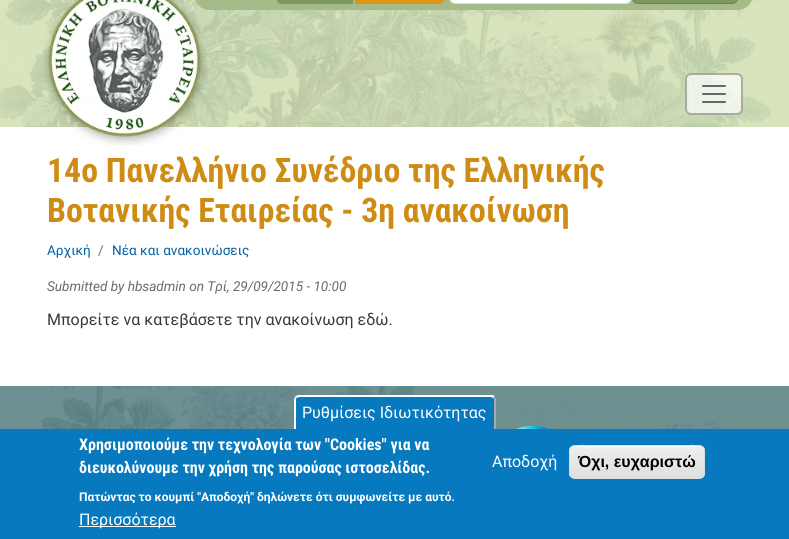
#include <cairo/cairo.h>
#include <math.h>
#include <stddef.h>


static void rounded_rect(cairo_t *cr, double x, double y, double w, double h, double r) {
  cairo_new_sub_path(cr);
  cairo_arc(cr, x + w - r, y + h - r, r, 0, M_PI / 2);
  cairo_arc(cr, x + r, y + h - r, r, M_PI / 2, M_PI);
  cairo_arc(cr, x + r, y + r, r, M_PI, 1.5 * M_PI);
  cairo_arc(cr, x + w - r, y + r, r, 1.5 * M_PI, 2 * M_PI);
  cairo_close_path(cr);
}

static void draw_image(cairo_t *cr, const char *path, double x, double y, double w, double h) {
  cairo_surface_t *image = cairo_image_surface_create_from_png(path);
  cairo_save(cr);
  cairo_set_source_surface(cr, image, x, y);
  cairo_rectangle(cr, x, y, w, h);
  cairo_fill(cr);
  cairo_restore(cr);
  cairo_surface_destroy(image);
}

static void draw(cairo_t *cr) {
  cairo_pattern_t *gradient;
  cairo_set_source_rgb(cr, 1, 1, 1);
  cairo_paint(cr);
  draw_image(cr, "images/1.png", 0, 0, 789, 127);
  draw_image(cr, "images/2.png", 43, 0, 165, 146);
  cairo_set_source_rgb(cr, 165 / 255.0, 187 / 255.0, 137 / 255.0);
  cairo_new_path(cr);
  cairo_move_to(cr, 204, -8);
  cairo_line_to(cr, 743, -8);
  cairo_line_to(cr, 743, 2);
  cairo_curve_to(cr, 743, 6.5, 739.5, 10, 735, 10);
  cairo_line_to(cr, 212, 10);
  cairo_curve_to(cr, 207.5, 10, 204, 6.5, 204, 2);
  cairo_close_path(cr);
  cairo_fill(cr);
  cairo_new_path(cr);
  cairo_move_to(cr, 179, -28);
  cairo_line_to(cr, 227, -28);
  cairo_line_to(cr, 248, 10);
  cairo_line_to(cr, 208, 10);
  cairo_curve_to(cr, 204, 10, 198, 6, 196, 2);
  cairo_close_path(cr);
  cairo_fill(cr);
  cairo_set_source_rgb(cr, 127 / 255.0, 151 / 255.0, 96 / 255.0);
  cairo_new_path(cr);
  cairo_move_to(cr, 281, -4);
  cairo_line_to(cr, 353, -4);
  cairo_line_to(cr, 353, 4);
  cairo_line_to(cr, 281, 4);
  cairo_curve_to(cr, 279, 4, 277, 2, 277, 0);
  cairo_curve_to(cr, 277, -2, 279, -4, 281, -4);
  cairo_close_path(cr);
  cairo_fill(cr);
  cairo_set_source_rgb(cr, 221 / 255.0, 149 / 255.0, 21 / 255.0);
  cairo_new_path(cr);
  cairo_move_to(cr, 355, -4);
  cairo_line_to(cr, 440, -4);
  cairo_curve_to(cr, 442, -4, 444, -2, 444, 0);
  cairo_curve_to(cr, 444, 2, 442, 4, 440, 4);
  cairo_line_to(cr, 355, 4);
  cairo_close_path(cr);
  cairo_fill(cr);
  cairo_set_source_rgb(cr, 1, 1, 1);
  rounded_rect(cr, 450, -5, 181, 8, 5);
  cairo_fill(cr);
  rounded_rect(cr, 449.5, -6.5, 182, 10, 5.5);
  cairo_set_source_rgb(cr, 222 / 255.0, 226 / 255.0, 230 / 255.0);
  cairo_set_line_width(cr, 1);
  cairo_stroke(cr);
  cairo_set_source_rgb(cr, 165 / 255.0, 187 / 255.0, 137 / 255.0);
  cairo_new_path(cr);
  cairo_move_to(cr, 720, -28);
  cairo_line_to(cr, 768, -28);
  cairo_line_to(cr, 751, 2);
  cairo_curve_to(cr, 749, 6, 743, 10, 739, 10);
  cairo_line_to(cr, 699, 10);
  cairo_close_path(cr);
  cairo_fill(cr);
  cairo_set_source_rgb(cr, 127 / 255.0, 151 / 255.0, 96 / 255.0);
  rounded_rect(cr, 632.5, -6.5, 105, 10, 5.5);
  cairo_fill_preserve(cr);
  cairo_set_source_rgb(cr, 108 / 255.0, 130 / 255.0, 82 / 255.0);
  cairo_stroke(cr);
  cairo_set_source_rgba(cr, 1, 1, 1, 0.7);
  rounded_rect(cr, 685, 73, 58, 42, 6);
  cairo_fill(cr);
  rounded_rect(cr, 686, 74, 56, 40, 5);
  cairo_set_source_rgba(cr, 0, 0, 0, 0.3);
  cairo_set_line_width(cr, 2);
  cairo_stroke(cr);
  draw_image(cr, "images/3.png", 702, 85, 24, 18);
  draw_image(cr, "images/4.png", 0, 386, 789, 43);
  draw_image(cr, "images/5.png", 517, 425, 31, 4);
  cairo_set_source_rgb(cr, 7 / 255.0, 121 / 255.0, 191 / 255.0);
  cairo_rectangle(cr, 0, 429, 789, 110);
  cairo_fill(cr);
  cairo_new_path(cr);
  cairo_move_to(cr, 299, 395);
  cairo_line_to(cr, 491, 395);
  cairo_curve_to(cr, 494, 395, 496, 397, 496, 400);
  cairo_line_to(cr, 496, 429);
  cairo_line_to(cr, 294, 429);
  cairo_line_to(cr, 294, 400);
  cairo_curve_to(cr, 294, 397, 296, 395, 299, 395);
  cairo_close_path(cr);
  cairo_fill(cr);
  cairo_set_source_rgb(cr, 1, 1, 1);
  cairo_new_path(cr);
  cairo_move_to(cr, 299, 395);
  cairo_line_to(cr, 492, 395);
  cairo_line_to(cr, 495, 396);
  cairo_line_to(cr, 493, 398);
  cairo_line_to(cr, 491, 397);
  cairo_line_to(cr, 299, 397);
  cairo_line_to(cr, 297, 398);
  cairo_line_to(cr, 295, 396);
  cairo_curve_to(cr, 296, 396, 297, 395, 299, 395);
  cairo_close_path(cr);
  cairo_fill(cr);
  cairo_set_source_rgb(cr, 170 / 255.0, 170 / 255.0, 170 / 255.0);
  cairo_new_path(cr);
  cairo_move_to(cr, 493, 398);
  cairo_line_to(cr, 494.5, 396.5);
  cairo_line_to(cr, 496, 398.5);
  cairo_line_to(cr, 496, 429);
  cairo_line_to(cr, 494, 429);
  cairo_line_to(cr, 494, 399.5);
  cairo_close_path(cr);
  cairo_fill(cr);
  cairo_set_source_rgb(cr, 1, 1, 1);
  cairo_new_path(cr);
  cairo_move_to(cr, 294, 429);
  cairo_line_to(cr, 296, 429);
  cairo_line_to(cr, 296, 400);
  cairo_curve_to(cr, 296, 399, 296, 398.5, 296.5, 398);
  cairo_line_to(cr, 295.5, 396.5);
  cairo_curve_to(cr, 294.5, 397.5, 294, 398.5, 294, 400);
  cairo_close_path(cr);
  cairo_fill(cr);
  cairo_rectangle(cr, 79, 526, 97, 1);
  cairo_fill(cr);
  cairo_save(cr);
  rounded_rect(cr, 569, 445, 136, 34, 6);
  cairo_clip(cr);
  gradient = cairo_pattern_create_linear(637, 446, 637, 478);
  cairo_pattern_add_color_stop_rgba(gradient, 0.05, 237 / 255.0, 237 / 255.0, 237 / 255.0, 1);
  cairo_pattern_add_color_stop_rgba(gradient, 1, 223 / 255.0, 223 / 255.0, 223 / 255.0, 1);
  cairo_set_source(cr, gradient);
  cairo_pattern_destroy(gradient);
  cairo_rectangle(cr, 569, 446, 136, 32);
  cairo_fill(cr);
  cairo_restore(cr);
  cairo_new_path(cr);
  cairo_move_to(cr, 575, 447);
  cairo_line_to(cr, 699, 447);
  cairo_curve_to(cr, 702, 447, 704, 449, 704, 452);
  cairo_curve_to(cr, 704, 441, 682, 446, 678, 446);
  cairo_line_to(cr, 596, 446);
  cairo_curve_to(cr, 592, 446, 570, 441, 570, 452);
  cairo_curve_to(cr, 570, 449, 572, 447, 575, 447);
  cairo_close_path(cr);
  cairo_fill(cr);
  rounded_rect(cr, 569.5, 445.5, 135, 33, 5.5);
  cairo_set_source_rgb(cr, 220 / 255.0, 220 / 255.0, 220 / 255.0);
  cairo_set_line_width(cr, 1);
  cairo_stroke(cr);
  cairo_select_font_face(cr, "Roboto Condensed", CAIRO_FONT_SLANT_NORMAL, CAIRO_FONT_WEIGHT_BOLD);
  cairo_set_font_size(cr, 33.8);
  cairo_set_source_rgb(cr, 207 / 255.0, 140 / 255.0, 20 / 255.0);
  cairo_move_to(cr, 47, 182);
  cairo_show_text(cr, "14ο Πανελλήνιο Συνέδριο της Ελληνικής");
  cairo_move_to(cr, 47, 222);
  cairo_show_text(cr, "Βοτανικής Εταιρείας - 3η ανακοίνωση");
  cairo_select_font_face(cr, "Roboto", CAIRO_FONT_SLANT_NORMAL, CAIRO_FONT_WEIGHT_NORMAL);
  cairo_set_font_size(cr, 13.6);
  cairo_set_source_rgb(cr, 2 / 255.0, 97 / 255.0, 166 / 255.0);
  cairo_move_to(cr, 47, 255);
  cairo_show_text(cr, "Αρχική");
  cairo_set_source_rgb(cr, 103 / 255.0, 107 / 255.0, 112 / 255.0);
  cairo_move_to(cr, 98, 255);
  cairo_show_text(cr, "/");
  cairo_set_source_rgb(cr, 2 / 255.0, 97 / 255.0, 166 / 255.0);
  cairo_move_to(cr, 112, 255);
  cairo_show_text(cr, "Νέα και ανακοινώσεις");
  cairo_select_font_face(cr, "Roboto", CAIRO_FONT_SLANT_ITALIC, CAIRO_FONT_WEIGHT_NORMAL);
  cairo_set_source_rgb(cr, 103 / 255.0, 107 / 255.0, 112 / 255.0);
  cairo_move_to(cr, 47, 291);
  cairo_show_text(cr, "Submitted by hbsadmin on Τρί, 29/09/2015 - 10:00");
  cairo_select_font_face(cr, "Roboto", CAIRO_FONT_SLANT_NORMAL, CAIRO_FONT_WEIGHT_NORMAL);
  cairo_set_font_size(cr, 16);
  cairo_set_source_rgb(cr, 52 / 255.0, 58 / 255.0, 64 / 255.0);
  cairo_move_to(cr, 47, 325);
  cairo_show_text(cr, "Μπορείτε να κατεβάσετε την ανακοίνωση εδώ.");
  cairo_set_source_rgb(cr, 1, 1, 1);
  cairo_move_to(cr, 302, 418);
  cairo_show_text(cr, "Ρυθμίσεις Ιδιωτικότητας");
  cairo_select_font_face(cr, "Roboto Condensed", CAIRO_FONT_SLANT_NORMAL, CAIRO_FONT_WEIGHT_BOLD);
  cairo_move_to(cr, 79, 450);
  cairo_show_text(cr, "Χρησιμοποιούμε την τεχνολογία των \"Cookies\" για να");
  cairo_move_to(cr, 79, 473);
  cairo_show_text(cr, "διευκολύνουμε την χρήση της παρούσας ιστοσελίδας.");
  cairo_select_font_face(cr, "Roboto", CAIRO_FONT_SLANT_NORMAL, CAIRO_FONT_WEIGHT_BOLD);
  cairo_set_font_size(cr, 12);
  cairo_move_to(cr, 79, 501);
  cairo_show_text(cr, "Πατώντας το κουμπί \"Αποδοχή\" δηλώνετε ότι συμφωνείτε με αυτό.");
  cairo_select_font_face(cr, "Roboto", CAIRO_FONT_SLANT_NORMAL, CAIRO_FONT_WEIGHT_NORMAL);
  cairo_set_font_size(cr, 16);
  cairo_move_to(cr, 79, 525);
  cairo_show_text(cr, "Περισσότερα");
  cairo_move_to(cr, 492, 467);
  cairo_show_text(cr, "Αποδοχή");
  cairo_select_font_face(cr, "Liberation Sans", CAIRO_FONT_SLANT_NORMAL, CAIRO_FONT_WEIGHT_BOLD);
  cairo_set_source_rgb(cr, 0, 0, 0);
  cairo_move_to(cr, 578, 467);
  cairo_show_text(cr, "Όχι, ευχαριστώ");
}

int main(void) {
  cairo_surface_t *surface = cairo_image_surface_create(CAIRO_FORMAT_RGB24, 789, 539);
  cairo_t *cr = cairo_create(surface);
  cairo_font_options_t *options = cairo_font_options_create();
  cairo_font_options_set_hint_metrics(options, CAIRO_HINT_METRICS_OFF);
  cairo_font_options_set_hint_style(options, CAIRO_HINT_STYLE_NONE);
  cairo_set_font_options(cr, options);
  cairo_set_miter_limit(cr, 4);
  draw(cr);
  cairo_surface_write_to_png(surface, "out.png");
  cairo_font_options_destroy(options);
  cairo_destroy(cr);
  cairo_surface_destroy(surface);
  return 0;
}
